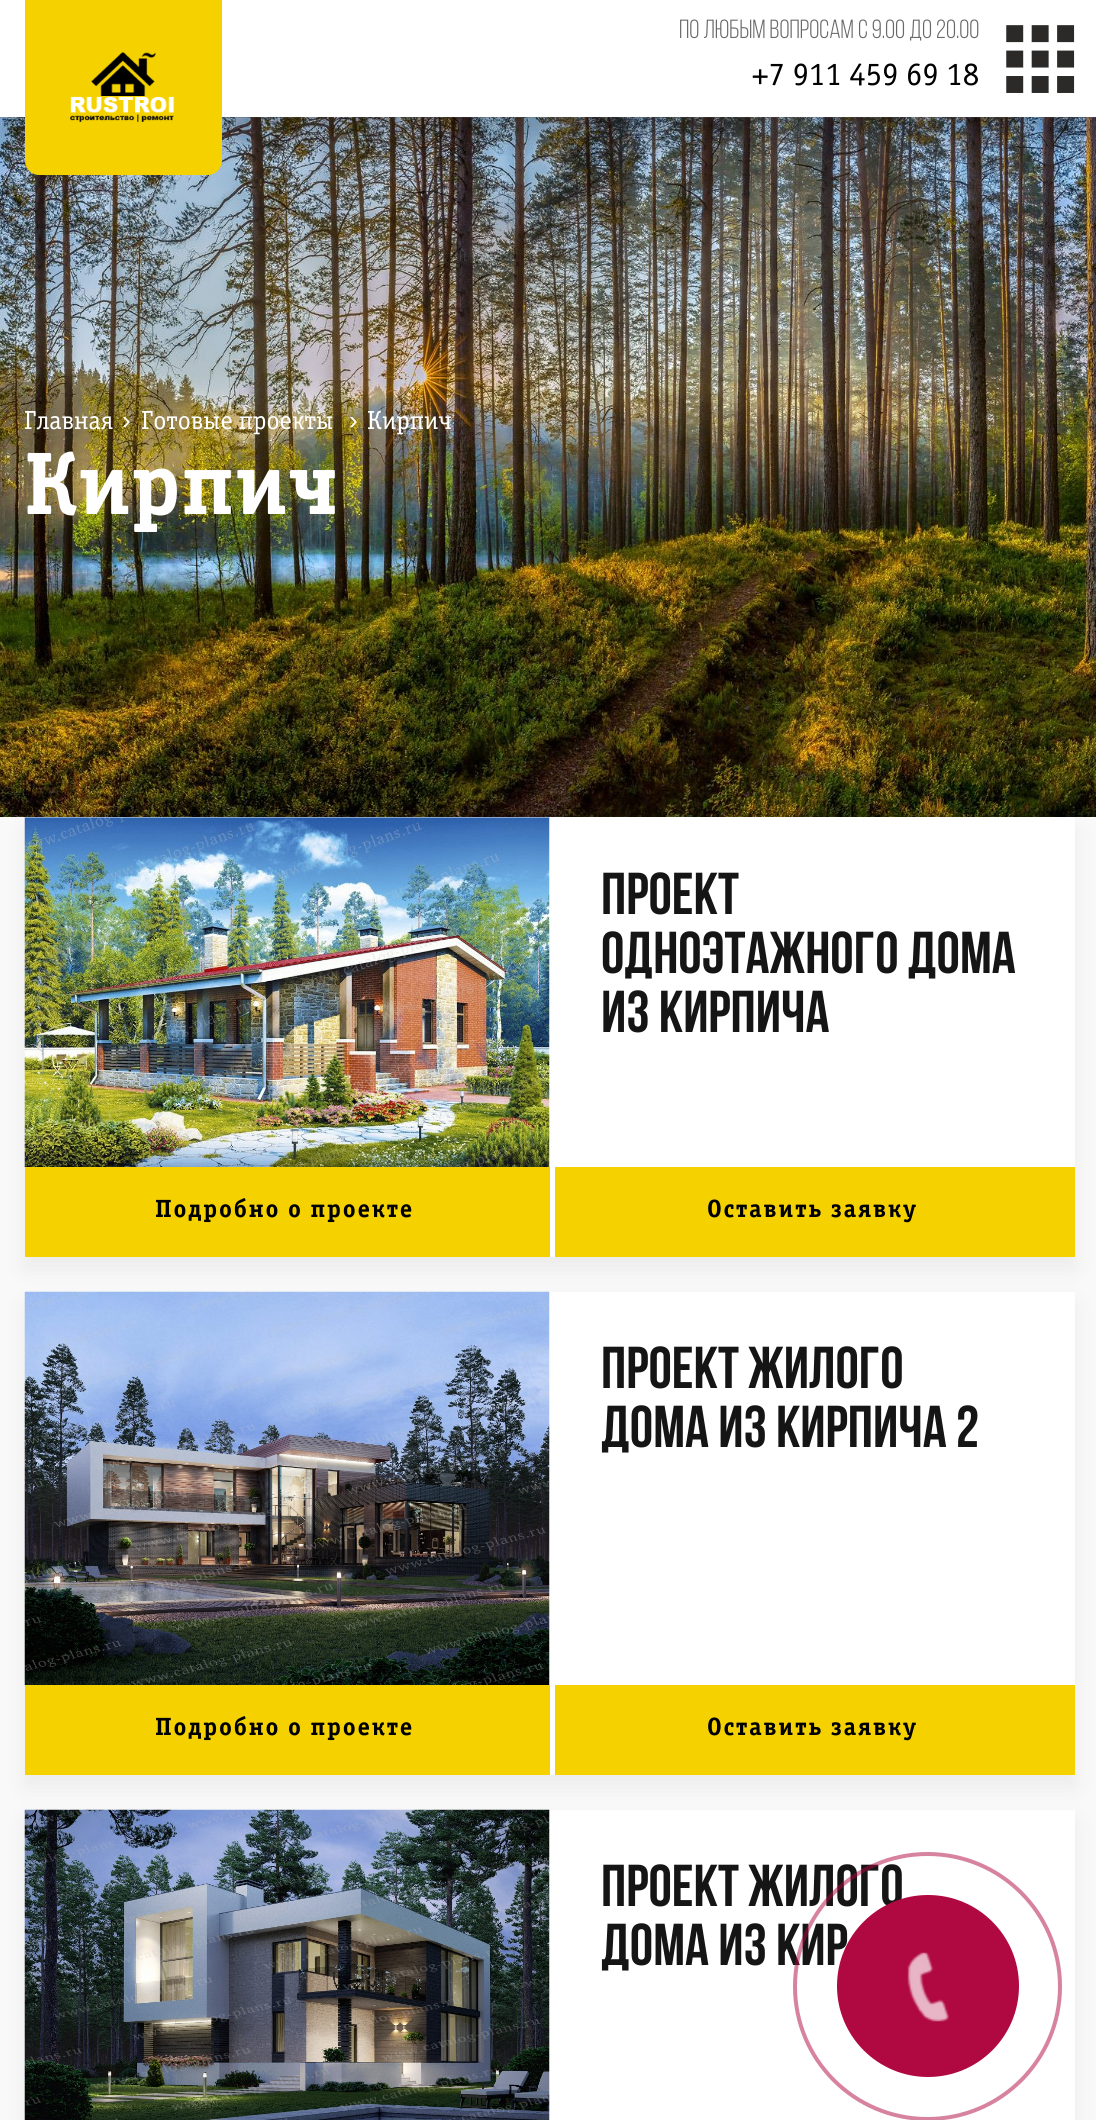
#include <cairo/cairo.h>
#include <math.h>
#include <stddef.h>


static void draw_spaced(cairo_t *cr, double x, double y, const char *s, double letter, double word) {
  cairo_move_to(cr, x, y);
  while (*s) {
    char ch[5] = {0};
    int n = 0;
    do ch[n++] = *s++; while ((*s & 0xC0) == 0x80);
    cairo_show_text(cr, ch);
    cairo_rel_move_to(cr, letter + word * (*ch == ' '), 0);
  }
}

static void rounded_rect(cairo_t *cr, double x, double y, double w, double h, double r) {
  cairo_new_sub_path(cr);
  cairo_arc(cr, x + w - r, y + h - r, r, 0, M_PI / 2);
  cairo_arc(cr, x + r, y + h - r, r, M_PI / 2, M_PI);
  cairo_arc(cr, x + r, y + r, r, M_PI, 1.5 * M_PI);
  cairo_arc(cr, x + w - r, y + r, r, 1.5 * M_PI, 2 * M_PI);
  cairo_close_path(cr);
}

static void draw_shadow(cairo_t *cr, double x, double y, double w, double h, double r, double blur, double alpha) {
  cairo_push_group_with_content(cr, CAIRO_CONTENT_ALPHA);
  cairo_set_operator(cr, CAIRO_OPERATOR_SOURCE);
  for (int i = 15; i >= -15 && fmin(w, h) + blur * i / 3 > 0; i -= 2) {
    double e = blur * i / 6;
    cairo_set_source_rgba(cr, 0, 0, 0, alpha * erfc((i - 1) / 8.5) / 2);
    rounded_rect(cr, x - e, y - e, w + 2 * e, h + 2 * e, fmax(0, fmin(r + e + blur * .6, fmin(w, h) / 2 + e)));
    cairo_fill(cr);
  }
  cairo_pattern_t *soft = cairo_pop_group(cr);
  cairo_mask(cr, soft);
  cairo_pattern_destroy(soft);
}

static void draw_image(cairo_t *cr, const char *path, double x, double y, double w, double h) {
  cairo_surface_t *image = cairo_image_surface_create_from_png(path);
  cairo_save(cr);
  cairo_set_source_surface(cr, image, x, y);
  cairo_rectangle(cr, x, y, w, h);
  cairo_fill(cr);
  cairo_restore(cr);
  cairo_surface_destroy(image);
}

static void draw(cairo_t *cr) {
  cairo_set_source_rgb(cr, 1, 1, 1);
  cairo_paint(cr);
  draw_image(cr, "images/3.png", 0, 117, 1096, 1);
  draw_image(cr, "images/4.png", 0, 117, 1096, 700);
  cairo_save(cr);
  cairo_rectangle(cr, 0, 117, 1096, 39);
  cairo_clip(cr);
  cairo_set_source_rgb(cr, 0, 0, 0);
  draw_shadow(cr, 0, 21, 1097, 117, 0, 14, 0.21);
  cairo_restore(cr);
  cairo_set_source_rgb(cr, 245 / 255.0, 209 / 255.0, 0);
  cairo_new_path(cr);
  cairo_move_to(cr, 25, 0);
  cairo_line_to(cr, 222, 0);
  cairo_line_to(cr, 222, 161);
  cairo_curve_to(cr, 222, 168.5, 215.5, 175, 208, 175);
  cairo_line_to(cr, 39, 175);
  cairo_curve_to(cr, 31.5, 175, 25, 168.5, 25, 161);
  cairo_close_path(cr);
  cairo_fill(cr);
  draw_image(cr, "images/1.png", 70, 52, 105, 70);
  draw_image(cr, "images/2.png", 1006, 25, 69, 68);
  cairo_set_source_rgb(cr, 249 / 255.0, 249 / 255.0, 249 / 255.0);
  cairo_rectangle(cr, 0, 817, 1096, 1303);
  cairo_fill(cr);
  cairo_set_source_rgb(cr, 0, 0, 0);
  draw_shadow(cr, 25, 830, 1050, 439, 0, 12, 0.06);
  cairo_set_source_rgb(cr, 1, 1, 1);
  cairo_rectangle(cr, 25, 817, 1050, 350);
  cairo_fill(cr);
  draw_image(cr, "images/5.png", 24, 817, 526, 350);
  cairo_set_source_rgb(cr, 245 / 255.0, 209 / 255.0, 0);
  cairo_rectangle(cr, 25, 1167, 1050, 90);
  cairo_fill(cr);
  cairo_set_source_rgb(cr, 1, 1, 1);
  cairo_rectangle(cr, 550, 1167, 5, 90);
  cairo_fill(cr);
  cairo_set_source_rgb(cr, 0, 0, 0);
  draw_shadow(cr, 25, 1304, 1050, 483, 0, 12, 0.06);
  cairo_set_source_rgb(cr, 1, 1, 1);
  cairo_rectangle(cr, 549, 1292, 526, 393);
  cairo_fill(cr);
  draw_image(cr, "images/6.png", 24, 1291, 526, 394);
  cairo_set_source_rgb(cr, 245 / 255.0, 209 / 255.0, 0);
  cairo_rectangle(cr, 25, 1685, 1050, 90);
  cairo_fill(cr);
  cairo_set_source_rgb(cr, 1, 1, 1);
  cairo_rectangle(cr, 550, 1685, 5, 90);
  cairo_fill(cr);
  cairo_set_source_rgb(cr, 0, 0, 0);
  draw_shadow(cr, 25, 1822, 1050, 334, 0, 12, 0.06);
  cairo_set_source_rgb(cr, 1, 1, 1);
  cairo_rectangle(cr, 549, 1810, 526, 310);
  cairo_fill(cr);
  draw_image(cr, "images/7.png", 24, 1809, 526, 311);
  cairo_select_font_face(cr, "Bebas Neue", CAIRO_FONT_SLANT_NORMAL, CAIRO_FONT_WEIGHT_NORMAL);
  cairo_set_font_size(cr, 26.25);
  cairo_set_source_rgb(cr, 105 / 255.0, 105 / 255.0, 105 / 255.0);
  cairo_move_to(cr, 679, 38);
  cairo_show_text(cr, "ПО ЛЮБЫМ ВОПРОСАМ С 9.00 ДО 20.00");
  cairo_select_font_face(cr, "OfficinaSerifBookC", CAIRO_FONT_SLANT_NORMAL, CAIRO_FONT_WEIGHT_NORMAL);
  cairo_set_font_size(cr, 32.75);
  cairo_set_source_rgb(cr, 0, 0, 0);
  cairo_move_to(cr, 752, 85);
  cairo_show_text(cr, "+7 911 459 69 18");
  cairo_set_font_size(cr, 26.25);
  cairo_set_source_rgb(cr, 1, 1, 1);
  cairo_move_to(cr, 24, 429);
  cairo_show_text(cr, "Главная");
  cairo_select_font_face(cr, "Liberation Sans", CAIRO_FONT_SLANT_NORMAL, CAIRO_FONT_WEIGHT_NORMAL);
  cairo_move_to(cr, 122, 429);
  cairo_show_text(cr, "›");
  cairo_select_font_face(cr, "OfficinaSerifBookC", CAIRO_FONT_SLANT_NORMAL, CAIRO_FONT_WEIGHT_NORMAL);
  cairo_move_to(cr, 141, 429);
  cairo_show_text(cr, "Готовые проекты");
  cairo_select_font_face(cr, "Liberation Sans", CAIRO_FONT_SLANT_NORMAL, CAIRO_FONT_WEIGHT_NORMAL);
  cairo_move_to(cr, 349, 429);
  cairo_show_text(cr, "›");
  cairo_select_font_face(cr, "OfficinaSerifBookC", CAIRO_FONT_SLANT_NORMAL, CAIRO_FONT_WEIGHT_NORMAL);
  cairo_move_to(cr, 367, 429);
  cairo_show_text(cr, "Кирпич");
  cairo_select_font_face(cr, "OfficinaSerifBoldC", CAIRO_FONT_SLANT_NORMAL, CAIRO_FONT_WEIGHT_BOLD);
  cairo_set_font_size(cr, 89);
  cairo_move_to(cr, 24, 514);
  cairo_show_text(cr, "Кирпич");
  cairo_select_font_face(cr, "Bebas Neue", CAIRO_FONT_SLANT_NORMAL, CAIRO_FONT_WEIGHT_BOLD);
  cairo_set_font_size(cr, 59);
  cairo_set_source_rgb(cr, 21 / 255.0, 21 / 255.0, 21 / 255.0);
  cairo_move_to(cr, 601, 914);
  cairo_show_text(cr, "Проект");
  cairo_move_to(cr, 601, 973);
  cairo_show_text(cr, "одноэтажного дома");
  cairo_move_to(cr, 601, 1032);
  cairo_show_text(cr, "из кирпича");
  cairo_select_font_face(cr, "OfficinaSerifBoldC", CAIRO_FONT_SLANT_NORMAL, CAIRO_FONT_WEIGHT_BOLD);
  cairo_set_font_size(cr, 25);
  cairo_set_source_rgb(cr, 0, 0, 0);
  draw_spaced(cr, 155, 1217, "Подробно о проекте", 1.75, 0);
  draw_spaced(cr, 707, 1217, "Оставить заявку", 1.75, 0);
  cairo_select_font_face(cr, "Bebas Neue", CAIRO_FONT_SLANT_NORMAL, CAIRO_FONT_WEIGHT_BOLD);
  cairo_set_font_size(cr, 59);
  cairo_set_source_rgb(cr, 21 / 255.0, 21 / 255.0, 21 / 255.0);
  cairo_move_to(cr, 601, 1388);
  cairo_show_text(cr, "Проект жилого");
  cairo_move_to(cr, 601, 1447);
  cairo_show_text(cr, "дома из кирпича 2");
  cairo_select_font_face(cr, "OfficinaSerifBoldC", CAIRO_FONT_SLANT_NORMAL, CAIRO_FONT_WEIGHT_BOLD);
  cairo_set_font_size(cr, 25);
  cairo_set_source_rgb(cr, 0, 0, 0);
  draw_spaced(cr, 155, 1735, "Подробно о проекте", 1.75, 0);
  draw_spaced(cr, 707, 1735, "Оставить заявку", 1.75, 0);
  cairo_select_font_face(cr, "Bebas Neue", CAIRO_FONT_SLANT_NORMAL, CAIRO_FONT_WEIGHT_BOLD);
  cairo_set_font_size(cr, 59);
  cairo_set_source_rgb(cr, 21 / 255.0, 21 / 255.0, 21 / 255.0);
  cairo_move_to(cr, 601, 1906);
  cairo_show_text(cr, "Проект жилого");
  cairo_move_to(cr, 601, 1965);
  cairo_show_text(cr, "дома из кир");
  cairo_new_path(cr);
  cairo_arc(cr, 927.5, 1986.5, 132.5, 0, 2 * M_PI);
  cairo_set_source_rgba(cr, 176 / 255.0, 8 / 255.0, 65 / 255.0, 0.5);
  cairo_set_line_width(cr, 4);
  cairo_stroke(cr);
  cairo_set_source_rgb(cr, 176 / 255.0, 8 / 255.0, 65 / 255.0);
  cairo_arc(cr, 928, 1986, 91, 0, 2 * M_PI);
  cairo_fill(cr);
  draw_image(cr, "images/8.png", 907, 1952, 42, 70);
}

int main(void) {
  cairo_surface_t *surface = cairo_image_surface_create(CAIRO_FORMAT_RGB24, 1096, 2120);
  cairo_t *cr = cairo_create(surface);
  cairo_font_options_t *options = cairo_font_options_create();
  cairo_font_options_set_hint_metrics(options, CAIRO_HINT_METRICS_OFF);
  cairo_font_options_set_hint_style(options, CAIRO_HINT_STYLE_NONE);
  cairo_set_font_options(cr, options);
  cairo_set_miter_limit(cr, 4);
  draw(cr);
  cairo_surface_write_to_png(surface, "out.png");
  cairo_font_options_destroy(options);
  cairo_destroy(cr);
  cairo_surface_destroy(surface);
  return 0;
}
